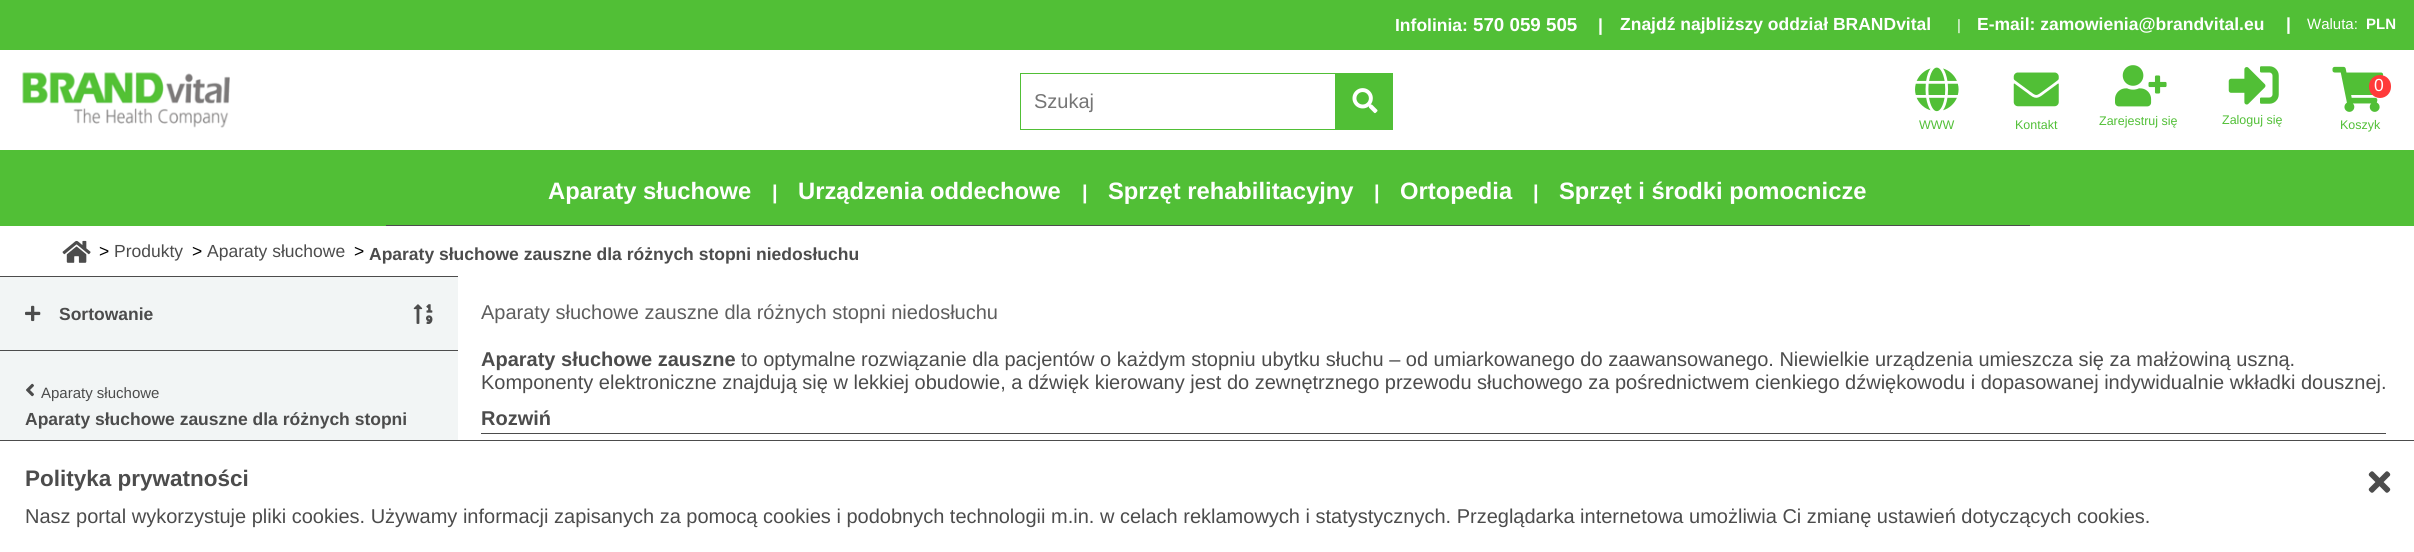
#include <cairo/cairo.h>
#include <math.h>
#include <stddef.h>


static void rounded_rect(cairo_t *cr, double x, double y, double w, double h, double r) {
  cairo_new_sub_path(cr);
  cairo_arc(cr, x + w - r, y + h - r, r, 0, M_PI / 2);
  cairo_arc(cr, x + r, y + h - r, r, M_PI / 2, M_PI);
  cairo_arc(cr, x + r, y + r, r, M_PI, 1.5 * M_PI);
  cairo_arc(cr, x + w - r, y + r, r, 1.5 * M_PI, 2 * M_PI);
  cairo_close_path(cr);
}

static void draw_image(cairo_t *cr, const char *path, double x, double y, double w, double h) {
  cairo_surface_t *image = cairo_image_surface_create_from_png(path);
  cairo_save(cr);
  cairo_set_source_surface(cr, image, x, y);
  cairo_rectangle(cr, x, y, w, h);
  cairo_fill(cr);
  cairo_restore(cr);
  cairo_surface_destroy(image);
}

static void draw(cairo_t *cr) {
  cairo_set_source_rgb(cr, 1, 1, 1);
  cairo_paint(cr);
  cairo_set_source_rgb(cr, 81 / 255.0, 191 / 255.0, 54 / 255.0);
  cairo_rectangle(cr, 0, 0, 2414, 50);
  cairo_fill(cr);
  cairo_rectangle(cr, 0, 150, 2414, 76);
  cairo_fill(cr);
  draw_image(cr, "images/1.png", 22, 72, 208, 56);
  cairo_rectangle(cr, 1020.5, 73.5, 315, 56);
  cairo_set_line_width(cr, 1);
  cairo_stroke(cr);
  cairo_rectangle(cr, 1336, 73, 57, 57);
  cairo_fill(cr);
  draw_image(cr, "images/2.png", 1352, 88, 26, 26);
  draw_image(cr, "images/3.png", 2332, 66, 52, 46);
  cairo_set_source_rgb(cr, 1, 58 / 255.0, 58 / 255.0);
  rounded_rect(cr, 2369, 75, 22, 23, 11);
  cairo_fill(cr);
  draw_image(cr, "images/4.png", 1915, 67, 44, 45);
  draw_image(cr, "images/5.png", 2013, 72, 46, 35);
  draw_image(cr, "images/6.png", 2115, 65, 52, 42);
  draw_image(cr, "images/7.png", 2228, 66, 51, 39);
  cairo_set_source_rgb(cr, 76 / 255.0, 76 / 255.0, 76 / 255.0);
  cairo_rectangle(cr, 386, 225, 1644, 1);
  cairo_fill(cr);
  draw_image(cr, "images/8.png", 62, 240, 29, 23);
  cairo_set_source_rgb(cr, 242 / 255.0, 245 / 255.0, 245 / 255.0);
  cairo_rectangle(cr, 0, 277, 458, 73);
  cairo_fill(cr);
  cairo_set_source_rgb(cr, 76 / 255.0, 76 / 255.0, 76 / 255.0);
  cairo_rectangle(cr, 0, 276, 458, 1);
  cairo_fill(cr);
  draw_image(cr, "images/9.png", 25, 305, 16, 17);
  draw_image(cr, "images/10.png", 413, 304, 20, 20);
  cairo_set_source_rgb(cr, 242 / 255.0, 245 / 255.0, 245 / 255.0);
  cairo_rectangle(cr, 0, 351, 458, 89);
  cairo_fill(cr);
  cairo_set_source_rgb(cr, 76 / 255.0, 76 / 255.0, 76 / 255.0);
  cairo_rectangle(cr, 0, 350, 458, 1);
  cairo_fill(cr);
  draw_image(cr, "images/11.png", 26, 383, 8, 14);
  cairo_rectangle(cr, 481, 433, 1905, 1);
  cairo_fill(cr);
  cairo_rectangle(cr, 0, 440, 2414, 1);
  cairo_fill(cr);
  draw_image(cr, "images/12.png", 2368, 471, 23, 22);
  cairo_select_font_face(cr, "Liberation Sans", CAIRO_FONT_SLANT_NORMAL, CAIRO_FONT_WEIGHT_BOLD);
  cairo_set_font_size(cr, 17.5);
  cairo_set_source_rgb(cr, 1, 1, 1);
  cairo_move_to(cr, 1395, 31);
  cairo_show_text(cr, "Infolinia:");
  cairo_set_font_size(cr, 18.75);
  cairo_move_to(cr, 1473, 31);
  cairo_show_text(cr, "570 059 505");
  cairo_set_font_size(cr, 17.5);
  cairo_move_to(cr, 1598, 31);
  cairo_show_text(cr, "|");
  cairo_move_to(cr, 1620, 30);
  cairo_show_text(cr, "Znajdź najbliższy oddział BRANDvital");
  cairo_select_font_face(cr, "Liberation Sans", CAIRO_FONT_SLANT_NORMAL, CAIRO_FONT_WEIGHT_NORMAL);
  cairo_set_font_size(cr, 15);
  cairo_move_to(cr, 1957, 30);
  cairo_show_text(cr, "|");
  cairo_select_font_face(cr, "Liberation Sans", CAIRO_FONT_SLANT_NORMAL, CAIRO_FONT_WEIGHT_BOLD);
  cairo_set_font_size(cr, 17.5);
  cairo_move_to(cr, 1977, 30);
  cairo_show_text(cr, "E-mail: zamowienia@brandvital.eu");
  cairo_move_to(cr, 2286, 30);
  cairo_show_text(cr, "|");
  cairo_select_font_face(cr, "Liberation Sans", CAIRO_FONT_SLANT_NORMAL, CAIRO_FONT_WEIGHT_NORMAL);
  cairo_set_font_size(cr, 15);
  cairo_move_to(cr, 2307, 29);
  cairo_show_text(cr, "Waluta:");
  cairo_select_font_face(cr, "Liberation Sans", CAIRO_FONT_SLANT_NORMAL, CAIRO_FONT_WEIGHT_BOLD);
  cairo_move_to(cr, 2366, 29);
  cairo_show_text(cr, "PLN");
  cairo_select_font_face(cr, "Liberation Sans", CAIRO_FONT_SLANT_NORMAL, CAIRO_FONT_WEIGHT_NORMAL);
  cairo_set_font_size(cr, 20);
  cairo_set_source_rgb(cr, 117 / 255.0, 117 / 255.0, 117 / 255.0);
  cairo_move_to(cr, 1034, 108);
  cairo_show_text(cr, "Szukaj");
  cairo_set_font_size(cr, 17.5);
  cairo_set_source_rgb(cr, 1, 1, 1);
  cairo_move_to(cr, 2374, 91);
  cairo_show_text(cr, "0");
  cairo_set_font_size(cr, 12.5);
  cairo_set_source_rgb(cr, 81 / 255.0, 191 / 255.0, 54 / 255.0);
  cairo_move_to(cr, 2340, 129);
  cairo_show_text(cr, "Koszyk");
  cairo_move_to(cr, 1919, 129);
  cairo_show_text(cr, "WWW");
  cairo_move_to(cr, 2015, 129);
  cairo_show_text(cr, "Kontakt");
  cairo_move_to(cr, 2099, 125);
  cairo_show_text(cr, "Zarejestruj się");
  cairo_move_to(cr, 2222, 124);
  cairo_show_text(cr, "Zaloguj się");
  cairo_select_font_face(cr, "Liberation Sans", CAIRO_FONT_SLANT_NORMAL, CAIRO_FONT_WEIGHT_BOLD);
  cairo_set_font_size(cr, 23.75);
  cairo_set_source_rgb(cr, 1, 1, 1);
  cairo_move_to(cr, 548, 199);
  cairo_show_text(cr, "Aparaty słuchowe");
  cairo_set_font_size(cr, 20);
  cairo_move_to(cr, 772, 199);
  cairo_show_text(cr, "|");
  cairo_set_font_size(cr, 23.75);
  cairo_move_to(cr, 798, 199);
  cairo_show_text(cr, "Urządzenia oddechowe");
  cairo_set_font_size(cr, 20);
  cairo_move_to(cr, 1082, 199);
  cairo_show_text(cr, "|");
  cairo_set_font_size(cr, 23.75);
  cairo_move_to(cr, 1108, 199);
  cairo_show_text(cr, "Sprzęt rehabilitacyjny");
  cairo_set_font_size(cr, 20);
  cairo_move_to(cr, 1374, 199);
  cairo_show_text(cr, "|");
  cairo_set_font_size(cr, 23.75);
  cairo_move_to(cr, 1400, 199);
  cairo_show_text(cr, "Ortopedia");
  cairo_set_font_size(cr, 20);
  cairo_move_to(cr, 1533, 199);
  cairo_show_text(cr, "|");
  cairo_set_font_size(cr, 23.75);
  cairo_move_to(cr, 1559, 199);
  cairo_show_text(cr, "Sprzęt i środki pomocnicze");
  cairo_select_font_face(cr, "Liberation Sans", CAIRO_FONT_SLANT_NORMAL, CAIRO_FONT_WEIGHT_NORMAL);
  cairo_set_font_size(cr, 17.5);
  cairo_set_source_rgb(cr, 0, 0, 0);
  cairo_move_to(cr, 99, 257);
  cairo_show_text(cr, ">");
  cairo_set_source_rgb(cr, 76 / 255.0, 76 / 255.0, 76 / 255.0);
  cairo_move_to(cr, 114, 257);
  cairo_show_text(cr, "Produkty");
  cairo_set_source_rgb(cr, 0, 0, 0);
  cairo_move_to(cr, 192, 257);
  cairo_show_text(cr, ">");
  cairo_set_source_rgb(cr, 76 / 255.0, 76 / 255.0, 76 / 255.0);
  cairo_move_to(cr, 207, 257);
  cairo_show_text(cr, "Aparaty słuchowe");
  cairo_set_source_rgb(cr, 0, 0, 0);
  cairo_move_to(cr, 354, 257);
  cairo_show_text(cr, ">");
  cairo_select_font_face(cr, "Liberation Sans", CAIRO_FONT_SLANT_NORMAL, CAIRO_FONT_WEIGHT_BOLD);
  cairo_set_source_rgb(cr, 76 / 255.0, 76 / 255.0, 76 / 255.0);
  cairo_move_to(cr, 369, 260);
  cairo_show_text(cr, "Aparaty słuchowe zauszne dla różnych stopni niedosłuchu");
  cairo_move_to(cr, 59, 320);
  cairo_show_text(cr, "Sortowanie");
  cairo_select_font_face(cr, "Liberation Sans", CAIRO_FONT_SLANT_NORMAL, CAIRO_FONT_WEIGHT_NORMAL);
  cairo_set_font_size(cr, 15);
  cairo_move_to(cr, 41, 398);
  cairo_show_text(cr, "Aparaty słuchowe");
  cairo_select_font_face(cr, "Liberation Sans", CAIRO_FONT_SLANT_NORMAL, CAIRO_FONT_WEIGHT_BOLD);
  cairo_set_font_size(cr, 17.5);
  cairo_move_to(cr, 25, 425);
  cairo_show_text(cr, "Aparaty słuchowe zauszne dla różnych stopni");
  cairo_select_font_face(cr, "Liberation Sans", CAIRO_FONT_SLANT_NORMAL, CAIRO_FONT_WEIGHT_NORMAL);
  cairo_set_font_size(cr, 20);
  cairo_set_source_rgb(cr, 94 / 255.0, 94 / 255.0, 94 / 255.0);
  cairo_move_to(cr, 481, 319);
  cairo_show_text(cr, "Aparaty słuchowe zauszne dla różnych stopni niedosłuchu");
  cairo_select_font_face(cr, "Liberation Sans", CAIRO_FONT_SLANT_NORMAL, CAIRO_FONT_WEIGHT_BOLD);
  cairo_set_source_rgb(cr, 76 / 255.0, 76 / 255.0, 76 / 255.0);
  cairo_move_to(cr, 481, 366);
  cairo_show_text(cr, "Aparaty słuchowe zauszne");
  cairo_select_font_face(cr, "Liberation Sans", CAIRO_FONT_SLANT_NORMAL, CAIRO_FONT_WEIGHT_NORMAL);
  cairo_move_to(cr, 741, 366);
  cairo_show_text(cr, "to optymalne rozwiązanie dla pacjentów o każdym stopniu ubytku słuchu – od umiarkowanego do zaawansowanego. Niewielkie urządzenia umieszcza się za małżowiną uszną.");
  cairo_move_to(cr, 481, 389);
  cairo_show_text(cr, "Komponenty elektroniczne znajdują się w lekkiej obudowie, a dźwięk kierowany jest do zewnętrznego przewodu słuchowego za pośrednictwem cienkiego dźwiękowodu i dopasowanej indywidualnie wkładki dousznej.");
  cairo_select_font_face(cr, "Liberation Sans", CAIRO_FONT_SLANT_NORMAL, CAIRO_FONT_WEIGHT_BOLD);
  cairo_move_to(cr, 481, 425);
  cairo_show_text(cr, "Rozwiń");
  cairo_set_font_size(cr, 22.5);
  cairo_move_to(cr, 25, 486);
  cairo_show_text(cr, "Polityka prywatności");
  cairo_select_font_face(cr, "Liberation Sans", CAIRO_FONT_SLANT_NORMAL, CAIRO_FONT_WEIGHT_NORMAL);
  cairo_set_font_size(cr, 20);
  cairo_move_to(cr, 25, 523);
  cairo_show_text(cr, "Nasz portal wykorzystuje pliki cookies. Używamy informacji zapisanych za pomocą cookies i podobnych technologii m.in. w celach reklamowych i statystycznych. Przeglądarka internetowa umożliwia Ci zmianę ustawień dotyczących cookies.");
}

int main(void) {
  cairo_surface_t *surface = cairo_image_surface_create(CAIRO_FORMAT_RGB24, 2414, 552);
  cairo_t *cr = cairo_create(surface);
  cairo_font_options_t *options = cairo_font_options_create();
  cairo_font_options_set_hint_metrics(options, CAIRO_HINT_METRICS_OFF);
  cairo_font_options_set_hint_style(options, CAIRO_HINT_STYLE_NONE);
  cairo_set_font_options(cr, options);
  cairo_set_miter_limit(cr, 4);
  draw(cr);
  cairo_surface_write_to_png(surface, "out.png");
  cairo_font_options_destroy(options);
  cairo_destroy(cr);
  cairo_surface_destroy(surface);
  return 0;
}
